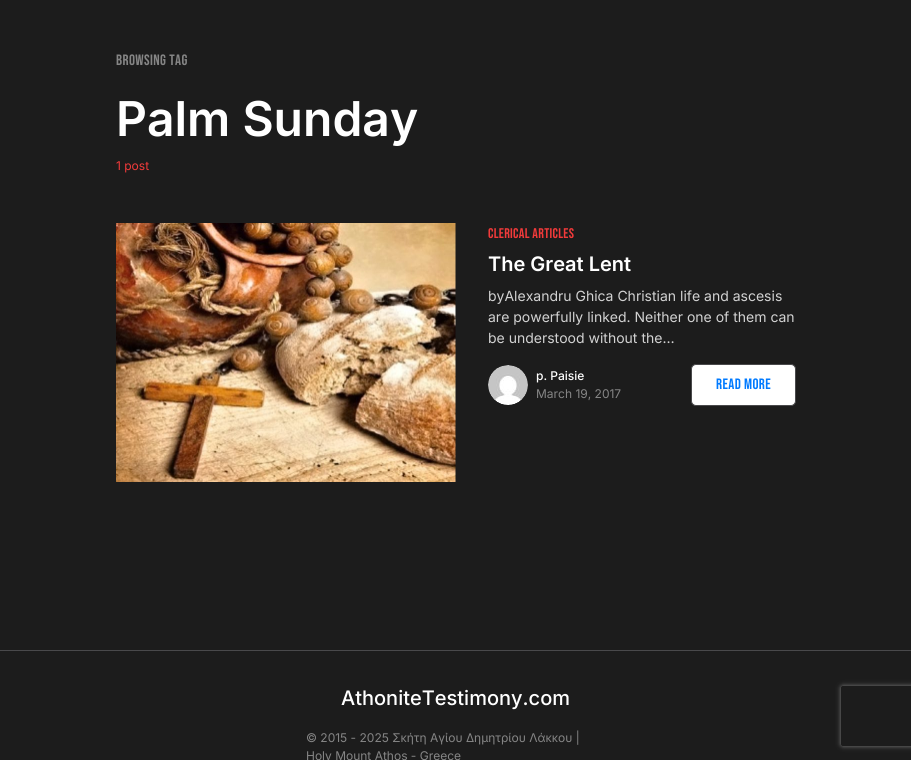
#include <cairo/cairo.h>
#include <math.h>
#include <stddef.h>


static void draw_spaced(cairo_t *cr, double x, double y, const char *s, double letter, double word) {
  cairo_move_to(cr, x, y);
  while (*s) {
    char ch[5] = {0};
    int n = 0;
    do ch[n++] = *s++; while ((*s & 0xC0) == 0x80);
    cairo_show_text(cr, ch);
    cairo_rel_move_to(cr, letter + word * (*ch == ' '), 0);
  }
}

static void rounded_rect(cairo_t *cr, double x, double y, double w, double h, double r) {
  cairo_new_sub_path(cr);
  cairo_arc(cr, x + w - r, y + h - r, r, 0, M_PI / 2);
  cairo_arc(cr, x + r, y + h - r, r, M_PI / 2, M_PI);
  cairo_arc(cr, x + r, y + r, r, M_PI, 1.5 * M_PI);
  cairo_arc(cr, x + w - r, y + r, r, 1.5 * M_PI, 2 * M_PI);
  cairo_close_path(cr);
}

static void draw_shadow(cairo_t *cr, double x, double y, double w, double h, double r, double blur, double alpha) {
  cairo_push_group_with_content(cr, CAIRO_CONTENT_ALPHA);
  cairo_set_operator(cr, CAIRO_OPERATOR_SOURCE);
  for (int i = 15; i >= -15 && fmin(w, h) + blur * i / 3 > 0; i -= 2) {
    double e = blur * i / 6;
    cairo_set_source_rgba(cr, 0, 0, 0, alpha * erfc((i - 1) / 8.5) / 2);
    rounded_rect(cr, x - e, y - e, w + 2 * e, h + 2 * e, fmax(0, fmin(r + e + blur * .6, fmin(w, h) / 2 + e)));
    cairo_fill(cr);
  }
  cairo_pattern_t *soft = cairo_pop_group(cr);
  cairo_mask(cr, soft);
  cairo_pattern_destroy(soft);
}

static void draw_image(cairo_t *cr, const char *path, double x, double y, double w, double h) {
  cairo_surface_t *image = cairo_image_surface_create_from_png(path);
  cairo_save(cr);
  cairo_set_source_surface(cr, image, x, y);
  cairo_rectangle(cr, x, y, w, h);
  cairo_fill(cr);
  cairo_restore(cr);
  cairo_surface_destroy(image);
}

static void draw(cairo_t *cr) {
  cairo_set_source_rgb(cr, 28 / 255.0, 28 / 255.0, 28 / 255.0);
  cairo_paint(cr);
  draw_image(cr, "images/1.png", 116, 223, 340, 259);
  draw_image(cr, "images/2.png", 488, 365, 40, 40);
  cairo_set_source_rgb(cr, 1, 1, 1);
  rounded_rect(cr, 691.5, 364.5, 104, 41, 4.5);
  cairo_fill_preserve(cr);
  cairo_set_source_rgb(cr, 73 / 255.0, 73 / 255.0, 75 / 255.0);
  cairo_set_line_width(cr, 1);
  cairo_stroke(cr);
  cairo_rectangle(cr, 0, 650, 911, 1);
  cairo_fill(cr);
  cairo_save(cr);
  cairo_set_fill_rule(cr, CAIRO_FILL_RULE_EVEN_ODD);
  cairo_new_path(cr);
  cairo_move_to(cr, 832, 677);
  cairo_line_to(cr, 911, 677);
  cairo_line_to(cr, 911, 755);
  cairo_line_to(cr, 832, 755);
  cairo_close_path(cr);
  cairo_move_to(cr, 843, 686);
  cairo_line_to(cr, 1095, 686);
  cairo_curve_to(cr, 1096, 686, 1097, 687, 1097, 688);
  cairo_line_to(cr, 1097, 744);
  cairo_curve_to(cr, 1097, 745, 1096, 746, 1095, 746);
  cairo_line_to(cr, 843, 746);
  cairo_curve_to(cr, 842, 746, 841, 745, 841, 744);
  cairo_line_to(cr, 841, 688);
  cairo_curve_to(cr, 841, 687, 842, 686, 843, 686);
  cairo_close_path(cr);
  cairo_clip(cr);
  cairo_set_source_rgb(cr, 128 / 255.0, 128 / 255.0, 128 / 255.0);
  draw_shadow(cr, 841, 686, 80, 60, 2, 2.5, 1);
  cairo_restore(cr);
  cairo_select_font_face(cr, "Bebas Neue", CAIRO_FONT_SLANT_NORMAL, CAIRO_FONT_WEIGHT_NORMAL);
  cairo_set_font_size(cr, 15);
  cairo_set_source_rgb(cr, 133 / 255.0, 133 / 255.0, 133 / 255.0);
  draw_spaced(cr, 116, 65, "Browsing Tag", 0.4, 0);
  cairo_select_font_face(cr, "Inter SemiBold", CAIRO_FONT_SLANT_NORMAL, CAIRO_FONT_WEIGHT_NORMAL);
  cairo_set_font_size(cr, 48);
  cairo_set_source_rgb(cr, 1, 1, 1);
  cairo_move_to(cr, 116, 136);
  cairo_show_text(cr, "Palm Sunday");
  cairo_select_font_face(cr, "Inter", CAIRO_FONT_SLANT_NORMAL, CAIRO_FONT_WEIGHT_NORMAL);
  cairo_set_font_size(cr, 12);
  cairo_set_source_rgb(cr, 242 / 255.0, 58 / 255.0, 58 / 255.0);
  cairo_move_to(cr, 116, 170);
  cairo_show_text(cr, "1 post");
  cairo_select_font_face(cr, "Bebas Neue", CAIRO_FONT_SLANT_NORMAL, CAIRO_FONT_WEIGHT_NORMAL);
  cairo_set_font_size(cr, 14);
  draw_spaced(cr, 488, 238, "CLERICAL ARTICLES", 0.3, 0);
  cairo_select_font_face(cr, "Inter SemiBold", CAIRO_FONT_SLANT_NORMAL, CAIRO_FONT_WEIGHT_NORMAL);
  cairo_set_font_size(cr, 20);
  cairo_set_source_rgb(cr, 1, 1, 1);
  cairo_move_to(cr, 488, 271);
  cairo_show_text(cr, "The Great Lent");
  cairo_select_font_face(cr, "Inter", CAIRO_FONT_SLANT_NORMAL, CAIRO_FONT_WEIGHT_NORMAL);
  cairo_set_font_size(cr, 14);
  cairo_set_source_rgb(cr, 210 / 255.0, 210 / 255.0, 210 / 255.0);
  cairo_move_to(cr, 488, 301);
  cairo_show_text(cr, "byAlexandru Ghica Christian life and ascesis");
  cairo_move_to(cr, 488, 322);
  cairo_show_text(cr, "are powerfully linked. Neither one of them can");
  cairo_move_to(cr, 488, 343);
  cairo_show_text(cr, "be understood without the…");
  cairo_select_font_face(cr, "Inter Medium", CAIRO_FONT_SLANT_NORMAL, CAIRO_FONT_WEIGHT_NORMAL);
  cairo_set_font_size(cr, 12);
  cairo_set_source_rgb(cr, 1, 1, 1);
  cairo_move_to(cr, 536, 380);
  cairo_show_text(cr, "p. Paisie");
  cairo_select_font_face(cr, "Inter", CAIRO_FONT_SLANT_NORMAL, CAIRO_FONT_WEIGHT_NORMAL);
  cairo_set_source_rgb(cr, 133 / 255.0, 133 / 255.0, 133 / 255.0);
  cairo_move_to(cr, 536, 398);
  cairo_show_text(cr, "March 19, 2017");
  cairo_select_font_face(cr, "Bebas Neue", CAIRO_FONT_SLANT_NORMAL, CAIRO_FONT_WEIGHT_NORMAL);
  cairo_set_font_size(cr, 15);
  cairo_set_source_rgb(cr, 0, 122 / 255.0, 1);
  draw_spaced(cr, 716, 389, "Read More", 0.4, 0);
  cairo_select_font_face(cr, "Inter Medium", CAIRO_FONT_SLANT_NORMAL, CAIRO_FONT_WEIGHT_NORMAL);
  cairo_set_font_size(cr, 20);
  cairo_set_source_rgb(cr, 1, 1, 1);
  cairo_move_to(cr, 341, 705);
  cairo_show_text(cr, "AthoniteTestimony.com");
  cairo_select_font_face(cr, "Inter", CAIRO_FONT_SLANT_NORMAL, CAIRO_FONT_WEIGHT_NORMAL);
  cairo_set_font_size(cr, 12);
  cairo_set_source_rgb(cr, 133 / 255.0, 133 / 255.0, 133 / 255.0);
  cairo_move_to(cr, 306, 742);
  cairo_show_text(cr, "© 2015 - 2025 Σκήτη Αγἰου Δημητρίου Λάκκου |");
  cairo_move_to(cr, 306, 760);
  cairo_show_text(cr, "Holy Mount Athos - Greece");
}

int main(void) {
  cairo_surface_t *surface = cairo_image_surface_create(CAIRO_FORMAT_RGB24, 911, 760);
  cairo_t *cr = cairo_create(surface);
  cairo_font_options_t *options = cairo_font_options_create();
  cairo_font_options_set_hint_metrics(options, CAIRO_HINT_METRICS_OFF);
  cairo_font_options_set_hint_style(options, CAIRO_HINT_STYLE_NONE);
  cairo_set_font_options(cr, options);
  cairo_set_miter_limit(cr, 4);
  draw(cr);
  cairo_surface_write_to_png(surface, "out.png");
  cairo_font_options_destroy(options);
  cairo_destroy(cr);
  cairo_surface_destroy(surface);
  return 0;
}
